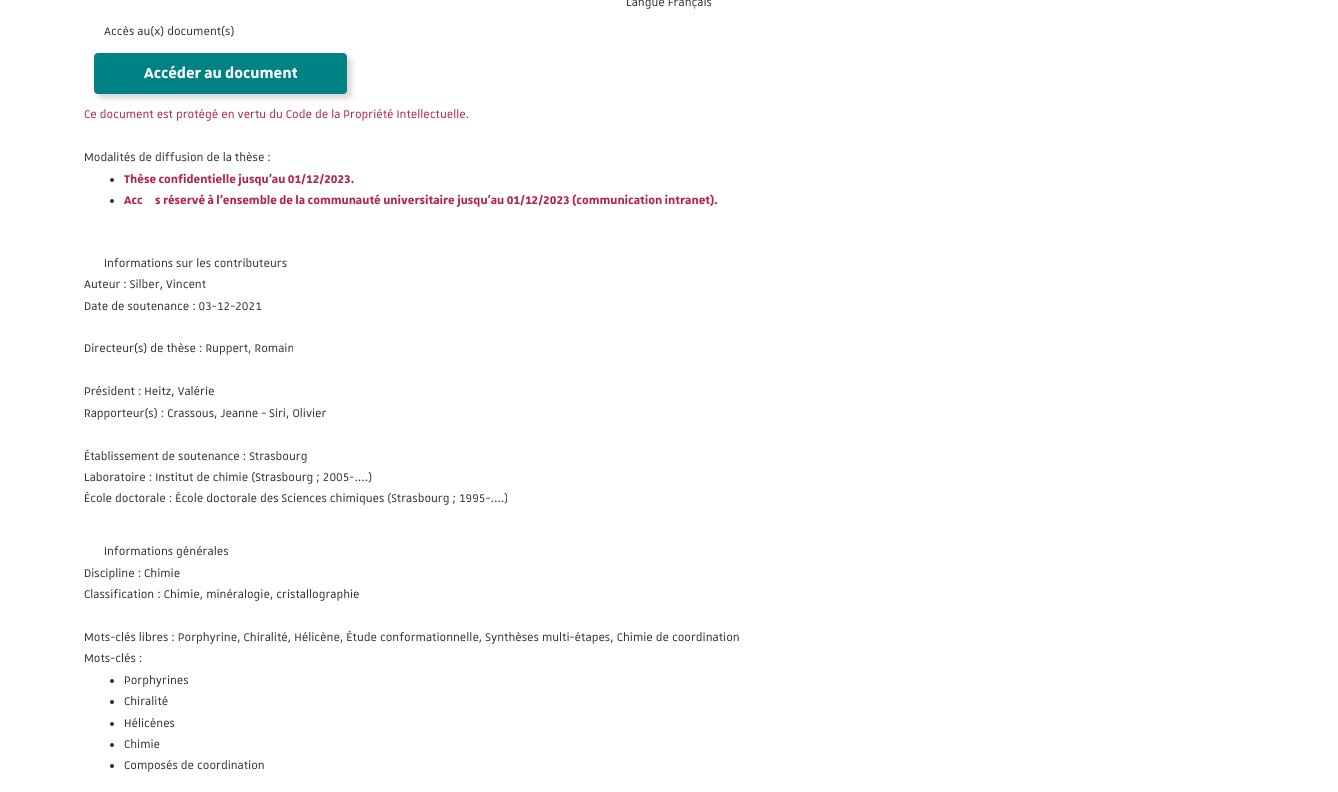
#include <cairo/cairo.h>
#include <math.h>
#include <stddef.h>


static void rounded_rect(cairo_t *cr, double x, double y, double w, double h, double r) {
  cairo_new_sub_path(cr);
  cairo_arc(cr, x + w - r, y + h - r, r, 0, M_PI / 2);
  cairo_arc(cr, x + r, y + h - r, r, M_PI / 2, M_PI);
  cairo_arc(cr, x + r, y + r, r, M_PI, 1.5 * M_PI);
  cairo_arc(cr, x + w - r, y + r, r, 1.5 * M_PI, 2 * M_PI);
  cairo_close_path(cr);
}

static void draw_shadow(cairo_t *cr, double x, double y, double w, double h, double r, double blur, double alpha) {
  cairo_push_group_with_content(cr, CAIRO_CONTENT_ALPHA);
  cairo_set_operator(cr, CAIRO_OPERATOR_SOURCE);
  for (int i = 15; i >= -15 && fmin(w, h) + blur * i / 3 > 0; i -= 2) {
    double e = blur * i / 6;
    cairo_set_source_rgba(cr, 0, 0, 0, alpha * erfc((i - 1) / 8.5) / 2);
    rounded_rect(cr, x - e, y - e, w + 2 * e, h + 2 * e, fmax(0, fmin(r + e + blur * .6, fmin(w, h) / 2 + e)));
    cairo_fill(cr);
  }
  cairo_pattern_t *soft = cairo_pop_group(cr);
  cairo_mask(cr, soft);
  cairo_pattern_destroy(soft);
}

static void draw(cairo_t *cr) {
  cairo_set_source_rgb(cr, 1, 1, 1);
  cairo_paint(cr);
  cairo_set_source_rgb(cr, 211 / 255.0, 211 / 255.0, 211 / 255.0);
  draw_shadow(cr, 98, 57, 253, 41, 4, 3, 1);
  cairo_set_source_rgb(cr, 0, 130 / 255.0, 133 / 255.0);
  rounded_rect(cr, 94.5, 53.5, 252, 40, 3.5);
  cairo_fill_preserve(cr);
  cairo_set_line_width(cr, 1);
  cairo_stroke(cr);
  cairo_set_source_rgb(cr, 51 / 255.0, 51 / 255.0, 51 / 255.0);
  cairo_arc(cr, 112, 180, 2, 0, 2 * M_PI);
  cairo_fill(cr);
  cairo_arc(cr, 112, 201, 2, 0, 2 * M_PI);
  cairo_fill(cr);
  cairo_arc(cr, 112, 681, 2, 0, 2 * M_PI);
  cairo_fill(cr);
  cairo_arc(cr, 112, 702, 2, 0, 2 * M_PI);
  cairo_fill(cr);
  cairo_arc(cr, 112, 724, 2, 0, 2 * M_PI);
  cairo_fill(cr);
  cairo_arc(cr, 112, 745, 2, 0, 2 * M_PI);
  cairo_fill(cr);
  cairo_arc(cr, 112, 766, 2, 0, 2 * M_PI);
  cairo_fill(cr);
  cairo_select_font_face(cr, "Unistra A", CAIRO_FONT_SLANT_NORMAL, CAIRO_FONT_WEIGHT_NORMAL);
  cairo_set_font_size(cr, 15);
  cairo_move_to(cr, 626, 6);
  cairo_show_text(cr, "Langue Français");
  cairo_move_to(cr, 104, 35);
  cairo_show_text(cr, "Accès au(x) document(s)");
  cairo_select_font_face(cr, "Unistra A", CAIRO_FONT_SLANT_NORMAL, CAIRO_FONT_WEIGHT_BOLD);
  cairo_set_font_size(cr, 19.5);
  cairo_set_source_rgb(cr, 1, 1, 1);
  cairo_move_to(cr, 144, 78);
  cairo_show_text(cr, "Accéder au document");
  cairo_select_font_face(cr, "Unistra A", CAIRO_FONT_SLANT_NORMAL, CAIRO_FONT_WEIGHT_NORMAL);
  cairo_set_font_size(cr, 15);
  cairo_set_source_rgb(cr, 178 / 255.0, 37 / 255.0, 75 / 255.0);
  cairo_move_to(cr, 84, 118);
  cairo_show_text(cr, "Ce document est protégé en vertu du Code de la Propriété Intellectuelle.");
  cairo_set_source_rgb(cr, 51 / 255.0, 51 / 255.0, 51 / 255.0);
  cairo_move_to(cr, 84, 161);
  cairo_show_text(cr, "Modalités de diffusion de la thèse :");
  cairo_select_font_face(cr, "Unistra A", CAIRO_FONT_SLANT_NORMAL, CAIRO_FONT_WEIGHT_BOLD);
  cairo_set_source_rgb(cr, 178 / 255.0, 37 / 255.0, 75 / 255.0);
  cairo_move_to(cr, 124, 183);
  cairo_show_text(cr, "Thèse confidentielle jusqu'au 01/12/2023.");
  cairo_move_to(cr, 124, 204);
  cairo_show_text(cr, "Acc");
  cairo_move_to(cr, 155, 204);
  cairo_show_text(cr, "s réservé à l'ensemble de la communauté universitaire jusqu'au 01/12/2023 (communication intranet).");
  cairo_select_font_face(cr, "Unistra A", CAIRO_FONT_SLANT_NORMAL, CAIRO_FONT_WEIGHT_NORMAL);
  cairo_set_source_rgb(cr, 51 / 255.0, 51 / 255.0, 51 / 255.0);
  cairo_move_to(cr, 104, 267);
  cairo_show_text(cr, "Informations sur les contributeurs");
  cairo_move_to(cr, 84, 288);
  cairo_show_text(cr, "Auteur : Silber, Vincent");
  cairo_move_to(cr, 84, 310);
  cairo_show_text(cr, "Date de soutenance : 03-12-2021");
  cairo_move_to(cr, 84, 352);
  cairo_show_text(cr, "Directeur(s) de thèse : Ruppert, Romain");
  cairo_move_to(cr, 84, 395);
  cairo_show_text(cr, "Président : Heitz, Valérie");
  cairo_move_to(cr, 84, 417);
  cairo_show_text(cr, "Rapporteur(s) : Crassous, Jeanne - Siri, Olivier");
  cairo_move_to(cr, 84, 460);
  cairo_show_text(cr, "Établissement de soutenance : Strasbourg");
  cairo_move_to(cr, 84, 481);
  cairo_show_text(cr, "Laboratoire : Institut de chimie (Strasbourg ; 2005-....)");
  cairo_move_to(cr, 84, 502);
  cairo_show_text(cr, "École doctorale : École doctorale des Sciences chimiques (Strasbourg ; 1995-....)");
  cairo_move_to(cr, 104, 555);
  cairo_show_text(cr, "Informations générales");
  cairo_move_to(cr, 84, 577);
  cairo_show_text(cr, "Discipline : Chimie");
  cairo_move_to(cr, 84, 598);
  cairo_show_text(cr, "Classification : Chimie, minéralogie, cristallographie");
  cairo_move_to(cr, 84, 641);
  cairo_show_text(cr, "Mots-clés libres : Porphyrine, Chiralité, Hélicène, Étude conformationnelle, Synthèses multi-étapes, Chimie de coordination");
  cairo_move_to(cr, 84, 662);
  cairo_show_text(cr, "Mots-clés :");
  cairo_move_to(cr, 124, 684);
  cairo_show_text(cr, "Porphyrines");
  cairo_move_to(cr, 124, 705);
  cairo_show_text(cr, "Chiralité");
  cairo_move_to(cr, 124, 727);
  cairo_show_text(cr, "Hélicènes");
  cairo_move_to(cr, 124, 748);
  cairo_show_text(cr, "Chimie");
  cairo_move_to(cr, 124, 769);
  cairo_show_text(cr, "Composés de coordination");
}

int main(void) {
  cairo_surface_t *surface = cairo_image_surface_create(CAIRO_FORMAT_RGB24, 1338, 792);
  cairo_t *cr = cairo_create(surface);
  cairo_font_options_t *options = cairo_font_options_create();
  cairo_font_options_set_hint_metrics(options, CAIRO_HINT_METRICS_OFF);
  cairo_font_options_set_hint_style(options, CAIRO_HINT_STYLE_NONE);
  cairo_set_font_options(cr, options);
  cairo_set_miter_limit(cr, 4);
  draw(cr);
  cairo_surface_write_to_png(surface, "out.png");
  cairo_font_options_destroy(options);
  cairo_destroy(cr);
  cairo_surface_destroy(surface);
  return 0;
}
